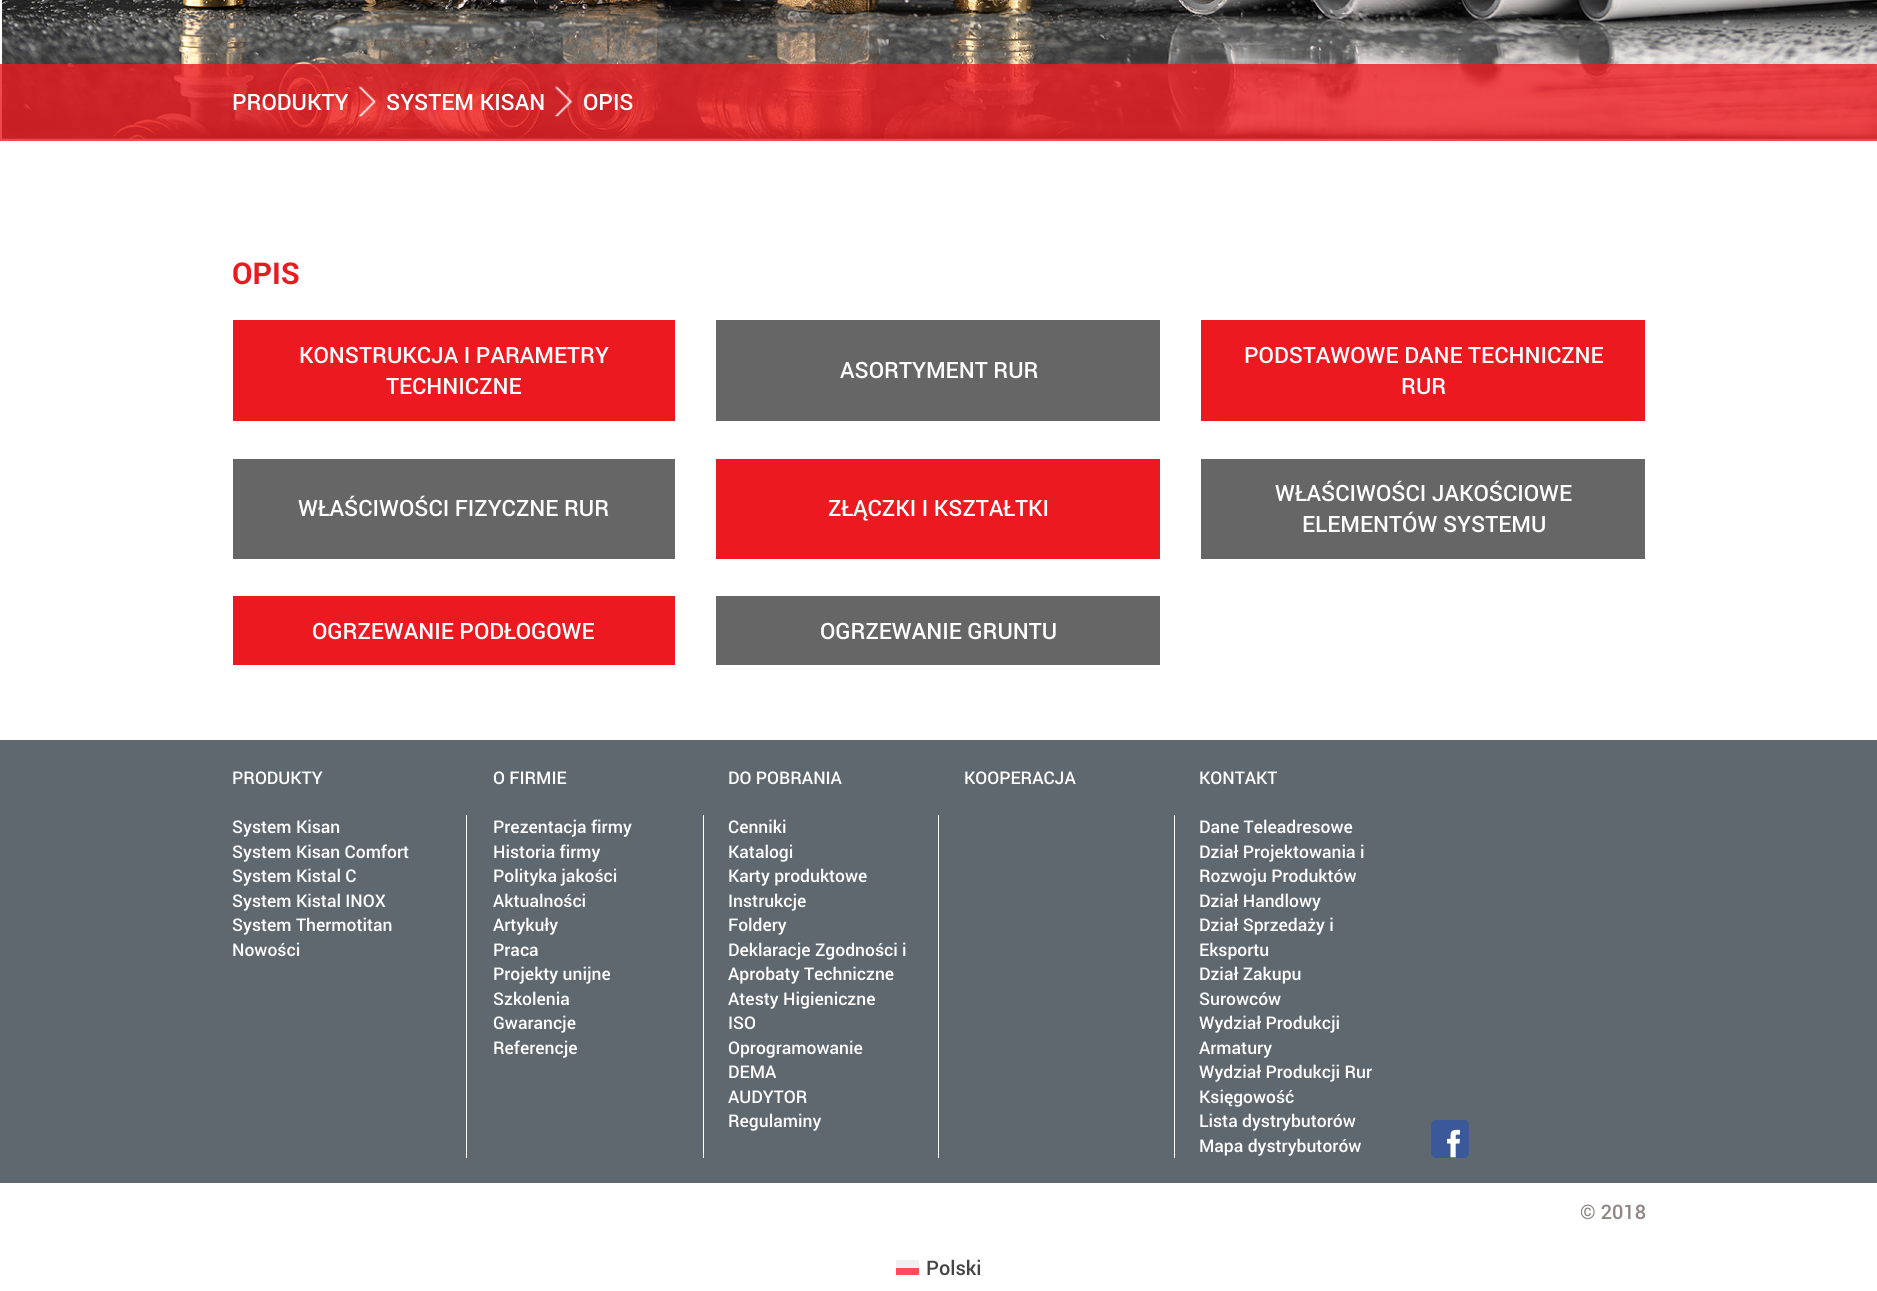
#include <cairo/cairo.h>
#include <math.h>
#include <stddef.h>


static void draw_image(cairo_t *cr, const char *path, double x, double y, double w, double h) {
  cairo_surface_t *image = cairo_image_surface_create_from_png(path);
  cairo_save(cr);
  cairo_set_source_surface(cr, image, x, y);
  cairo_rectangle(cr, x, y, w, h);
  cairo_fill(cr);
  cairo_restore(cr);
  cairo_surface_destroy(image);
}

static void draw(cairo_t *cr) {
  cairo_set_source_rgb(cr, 1, 1, 1);
  cairo_paint(cr);
  draw_image(cr, "images/1.png", 0, 0, 1877, 139);
  cairo_set_source_rgba(cr, 236 / 255.0, 25 / 255.0, 32 / 255.0, 0.8);
  cairo_rectangle(cr, 0, 64, 1877, 77);
  cairo_fill(cr);
  draw_image(cr, "images/2.png", 358, 86, 19, 31);
  draw_image(cr, "images/3.png", 555, 86, 18, 31);
  cairo_set_source_rgb(cr, 236 / 255.0, 25 / 255.0, 32 / 255.0);
  cairo_rectangle(cr, 233, 320, 442, 101);
  cairo_fill(cr);
  cairo_set_source_rgb(cr, 102 / 255.0, 102 / 255.0, 102 / 255.0);
  cairo_rectangle(cr, 716, 320, 444, 101);
  cairo_fill(cr);
  cairo_set_source_rgb(cr, 236 / 255.0, 25 / 255.0, 32 / 255.0);
  cairo_rectangle(cr, 1201, 320, 444, 101);
  cairo_fill(cr);
  cairo_set_source_rgb(cr, 102 / 255.0, 102 / 255.0, 102 / 255.0);
  cairo_rectangle(cr, 233, 459, 442, 100);
  cairo_fill(cr);
  cairo_set_source_rgb(cr, 236 / 255.0, 25 / 255.0, 32 / 255.0);
  cairo_rectangle(cr, 716, 459, 444, 100);
  cairo_fill(cr);
  cairo_set_source_rgb(cr, 102 / 255.0, 102 / 255.0, 102 / 255.0);
  cairo_rectangle(cr, 1201, 459, 444, 100);
  cairo_fill(cr);
  cairo_set_source_rgb(cr, 236 / 255.0, 25 / 255.0, 32 / 255.0);
  cairo_rectangle(cr, 233, 596, 442, 69);
  cairo_fill(cr);
  cairo_set_source_rgb(cr, 102 / 255.0, 102 / 255.0, 102 / 255.0);
  cairo_rectangle(cr, 716, 596, 444, 69);
  cairo_fill(cr);
  cairo_set_source_rgb(cr, 95 / 255.0, 104 / 255.0, 111 / 255.0);
  cairo_rectangle(cr, 0, 740, 1877, 443);
  cairo_fill(cr);
  cairo_set_source_rgb(cr, 1, 1, 1);
  cairo_rectangle(cr, 466, 815, 1, 343);
  cairo_fill(cr);
  cairo_rectangle(cr, 703, 815, 1, 343);
  cairo_fill(cr);
  cairo_rectangle(cr, 938, 815, 1, 343);
  cairo_fill(cr);
  cairo_rectangle(cr, 1174, 815, 1, 343);
  cairo_fill(cr);
  draw_image(cr, "images/4.png", 1431, 1120, 38, 38);
  cairo_set_source_rgb(cr, 240 / 255.0, 240 / 255.0, 240 / 255.0);
  cairo_rectangle(cr, 896, 1260, 23, 8);
  cairo_fill(cr);
  cairo_set_source_rgb(cr, 1, 75 / 255.0, 85 / 255.0);
  cairo_rectangle(cr, 896, 1268, 23, 7);
  cairo_fill(cr);
  cairo_select_font_face(cr, "Roboto Medium", CAIRO_FONT_SLANT_NORMAL, CAIRO_FONT_WEIGHT_NORMAL);
  cairo_set_font_size(cr, 22.5);
  cairo_set_source_rgb(cr, 1, 1, 1);
  cairo_move_to(cr, 232, 110);
  cairo_show_text(cr, "PRODUKTY");
  cairo_move_to(cr, 386, 110);
  cairo_show_text(cr, "SYSTEM KISAN");
  cairo_move_to(cr, 583, 110);
  cairo_show_text(cr, "OPIS");
  cairo_select_font_face(cr, "Roboto", CAIRO_FONT_SLANT_NORMAL, CAIRO_FONT_WEIGHT_BOLD);
  cairo_set_font_size(cr, 30);
  cairo_set_source_rgb(cr, 236 / 255.0, 25 / 255.0, 32 / 255.0);
  cairo_move_to(cr, 232, 284);
  cairo_show_text(cr, "OPIS");
  cairo_select_font_face(cr, "Roboto Medium", CAIRO_FONT_SLANT_NORMAL, CAIRO_FONT_WEIGHT_NORMAL);
  cairo_set_font_size(cr, 22.5);
  cairo_set_source_rgb(cr, 1, 1, 1);
  cairo_move_to(cr, 299, 363);
  cairo_show_text(cr, "KONSTRUKCJA I PARAMETRY");
  cairo_move_to(cr, 386, 394);
  cairo_show_text(cr, "TECHNICZNE");
  cairo_move_to(cr, 840, 378);
  cairo_show_text(cr, "ASORTYMENT RUR");
  cairo_move_to(cr, 1244, 363);
  cairo_show_text(cr, "PODSTAWOWE DANE TECHNICZNE");
  cairo_move_to(cr, 1401, 394);
  cairo_show_text(cr, "RUR");
  cairo_move_to(cr, 298, 516);
  cairo_show_text(cr, "WŁAŚCIWOŚCI FIZYCZNE RUR");
  cairo_move_to(cr, 828, 516);
  cairo_show_text(cr, "ZŁĄCZKI I KSZTAŁTKI");
  cairo_move_to(cr, 1275, 501);
  cairo_show_text(cr, "WŁAŚCIWOŚCI JAKOŚCIOWE");
  cairo_move_to(cr, 1302, 532);
  cairo_show_text(cr, "ELEMENTÓW SYSTEMU");
  cairo_move_to(cr, 312, 639);
  cairo_show_text(cr, "OGRZEWANIE PODŁOGOWE");
  cairo_move_to(cr, 820, 639);
  cairo_show_text(cr, "OGRZEWANIE GRUNTU");
  cairo_set_font_size(cr, 17.5);
  cairo_move_to(cr, 232, 784);
  cairo_show_text(cr, "PRODUKTY");
  cairo_move_to(cr, 232, 833);
  cairo_show_text(cr, "System Kisan");
  cairo_move_to(cr, 232, 858);
  cairo_show_text(cr, "System Kisan Comfort");
  cairo_move_to(cr, 232, 882);
  cairo_show_text(cr, "System Kistal C");
  cairo_move_to(cr, 232, 907);
  cairo_show_text(cr, "System Kistal INOX");
  cairo_move_to(cr, 232, 931);
  cairo_show_text(cr, "System Thermotitan");
  cairo_move_to(cr, 232, 956);
  cairo_show_text(cr, "Nowości");
  cairo_move_to(cr, 493, 784);
  cairo_show_text(cr, "O FIRMIE");
  cairo_move_to(cr, 493, 833);
  cairo_show_text(cr, "Prezentacja firmy");
  cairo_move_to(cr, 493, 858);
  cairo_show_text(cr, "Historia firmy");
  cairo_move_to(cr, 493, 882);
  cairo_show_text(cr, "Polityka jakości");
  cairo_move_to(cr, 493, 907);
  cairo_show_text(cr, "Aktualności");
  cairo_move_to(cr, 493, 931);
  cairo_show_text(cr, "Artykuły");
  cairo_move_to(cr, 493, 956);
  cairo_show_text(cr, "Praca");
  cairo_move_to(cr, 493, 980);
  cairo_show_text(cr, "Projekty unijne");
  cairo_move_to(cr, 493, 1005);
  cairo_show_text(cr, "Szkolenia");
  cairo_move_to(cr, 493, 1029);
  cairo_show_text(cr, "Gwarancje");
  cairo_move_to(cr, 493, 1054);
  cairo_show_text(cr, "Referencje");
  cairo_move_to(cr, 728, 784);
  cairo_show_text(cr, "DO POBRANIA");
  cairo_move_to(cr, 728, 833);
  cairo_show_text(cr, "Cenniki");
  cairo_move_to(cr, 728, 858);
  cairo_show_text(cr, "Katalogi");
  cairo_move_to(cr, 728, 882);
  cairo_show_text(cr, "Karty produktowe");
  cairo_move_to(cr, 728, 907);
  cairo_show_text(cr, "Instrukcje");
  cairo_move_to(cr, 728, 931);
  cairo_show_text(cr, "Foldery");
  cairo_move_to(cr, 728, 956);
  cairo_show_text(cr, "Deklaracje Zgodności i");
  cairo_move_to(cr, 728, 980);
  cairo_show_text(cr, "Aprobaty Techniczne");
  cairo_move_to(cr, 728, 1005);
  cairo_show_text(cr, "Atesty Higieniczne");
  cairo_move_to(cr, 728, 1029);
  cairo_show_text(cr, "ISO");
  cairo_move_to(cr, 728, 1054);
  cairo_show_text(cr, "Oprogramowanie");
  cairo_move_to(cr, 728, 1078);
  cairo_show_text(cr, "DEMA");
  cairo_move_to(cr, 728, 1103);
  cairo_show_text(cr, "AUDYTOR");
  cairo_move_to(cr, 728, 1127);
  cairo_show_text(cr, "Regulaminy");
  cairo_move_to(cr, 964, 784);
  cairo_show_text(cr, "KOOPERACJA");
  cairo_move_to(cr, 1199, 784);
  cairo_show_text(cr, "KONTAKT");
  cairo_move_to(cr, 1199, 833);
  cairo_show_text(cr, "Dane Teleadresowe");
  cairo_move_to(cr, 1199, 858);
  cairo_show_text(cr, "Dział Projektowania i");
  cairo_move_to(cr, 1199, 882);
  cairo_show_text(cr, "Rozwoju Produktów");
  cairo_move_to(cr, 1199, 907);
  cairo_show_text(cr, "Dział Handlowy");
  cairo_move_to(cr, 1199, 931);
  cairo_show_text(cr, "Dział Sprzedaży i");
  cairo_move_to(cr, 1199, 956);
  cairo_show_text(cr, "Eksportu");
  cairo_move_to(cr, 1199, 980);
  cairo_show_text(cr, "Dział Zakupu");
  cairo_move_to(cr, 1199, 1005);
  cairo_show_text(cr, "Surowców");
  cairo_move_to(cr, 1199, 1029);
  cairo_show_text(cr, "Wydział Produkcji");
  cairo_move_to(cr, 1199, 1054);
  cairo_show_text(cr, "Armatury");
  cairo_move_to(cr, 1199, 1078);
  cairo_show_text(cr, "Wydział Produkcji Rur");
  cairo_move_to(cr, 1199, 1103);
  cairo_show_text(cr, "Księgowość");
  cairo_move_to(cr, 1199, 1127);
  cairo_show_text(cr, "Lista dystrybutorów");
  cairo_move_to(cr, 1199, 1152);
  cairo_show_text(cr, "Mapa dystrybutorów");
  cairo_set_font_size(cr, 20);
  cairo_set_source_rgb(cr, 144 / 255.0, 134 / 255.0, 134 / 255.0);
  cairo_move_to(cr, 1580, 1219);
  cairo_show_text(cr, "© 2018");
  cairo_set_source_rgb(cr, 68 / 255.0, 68 / 255.0, 68 / 255.0);
  cairo_move_to(cr, 926, 1275);
  cairo_show_text(cr, "Polski");
}

int main(void) {
  cairo_surface_t *surface = cairo_image_surface_create(CAIRO_FORMAT_RGB24, 1877, 1291);
  cairo_t *cr = cairo_create(surface);
  cairo_font_options_t *options = cairo_font_options_create();
  cairo_font_options_set_hint_metrics(options, CAIRO_HINT_METRICS_OFF);
  cairo_font_options_set_hint_style(options, CAIRO_HINT_STYLE_NONE);
  cairo_set_font_options(cr, options);
  cairo_set_miter_limit(cr, 4);
  draw(cr);
  cairo_surface_write_to_png(surface, "out.png");
  cairo_font_options_destroy(options);
  cairo_destroy(cr);
  cairo_surface_destroy(surface);
  return 0;
}
